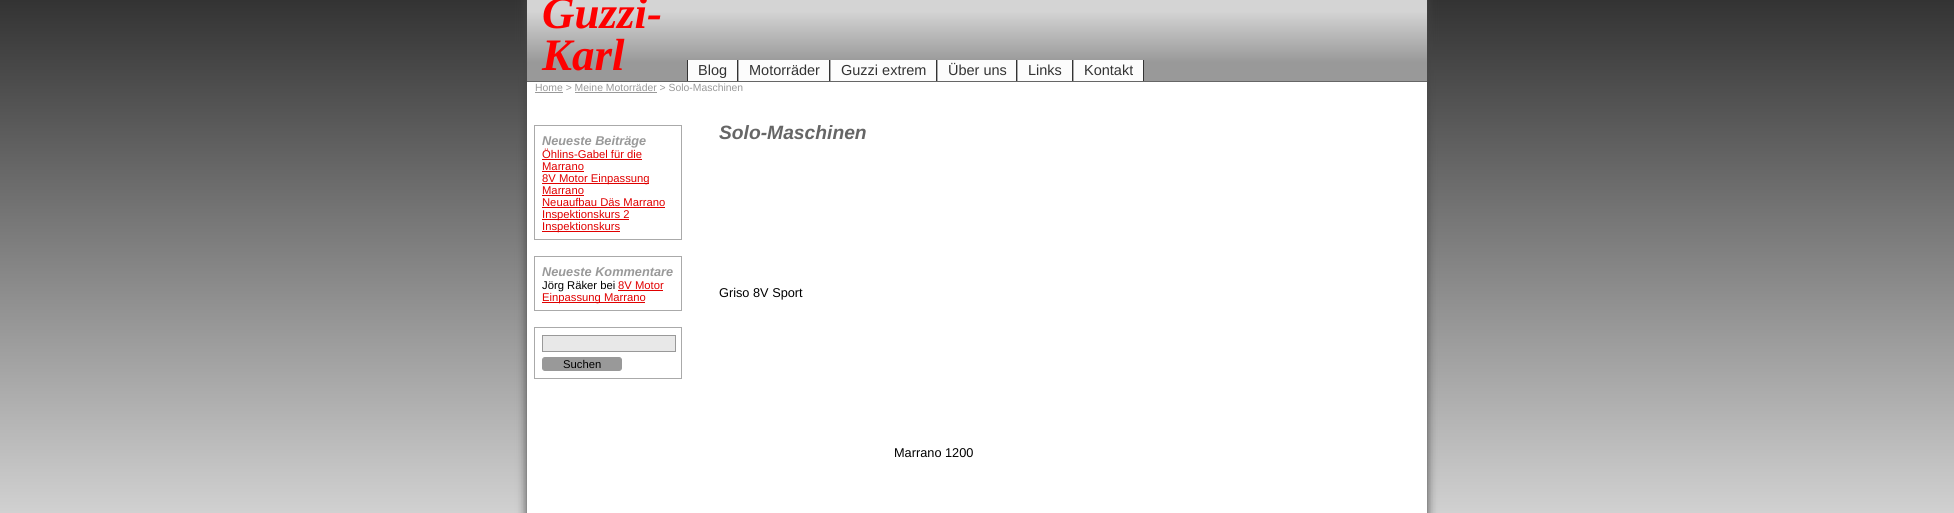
#include <cairo/cairo.h>
#include <math.h>
#include <stddef.h>


static void rounded_rect(cairo_t *cr, double x, double y, double w, double h, double r) {
  cairo_new_sub_path(cr);
  cairo_arc(cr, x + w - r, y + h - r, r, 0, M_PI / 2);
  cairo_arc(cr, x + r, y + h - r, r, M_PI / 2, M_PI);
  cairo_arc(cr, x + r, y + r, r, M_PI, 1.5 * M_PI);
  cairo_arc(cr, x + w - r, y + r, r, 1.5 * M_PI, 2 * M_PI);
  cairo_close_path(cr);
}

static void draw_shadow(cairo_t *cr, double x, double y, double w, double h, double r, double blur, double alpha) {
  cairo_push_group_with_content(cr, CAIRO_CONTENT_ALPHA);
  cairo_set_operator(cr, CAIRO_OPERATOR_SOURCE);
  for (int i = 15; i >= -15 && fmin(w, h) + blur * i / 3 > 0; i -= 2) {
    double e = blur * i / 6;
    cairo_set_source_rgba(cr, 0, 0, 0, alpha * erfc((i - 1) / 8.5) / 2);
    rounded_rect(cr, x - e, y - e, w + 2 * e, h + 2 * e, fmax(0, fmin(r + e + blur * .6, fmin(w, h) / 2 + e)));
    cairo_fill(cr);
  }
  cairo_pattern_t *soft = cairo_pop_group(cr);
  cairo_mask(cr, soft);
  cairo_pattern_destroy(soft);
}

static void draw(cairo_t *cr) {
  cairo_pattern_t *gradient;
  cairo_set_source_rgb(cr, 1, 1, 1);
  cairo_paint(cr);
  gradient = cairo_pattern_create_linear(977, 0, 977, 513);
  cairo_pattern_add_color_stop_rgba(gradient, 0, 51 / 255.0, 51 / 255.0, 51 / 255.0, 1);
  cairo_pattern_add_color_stop_rgba(gradient, 1, 209 / 255.0, 209 / 255.0, 209 / 255.0, 1);
  cairo_set_source(cr, gradient);
  cairo_pattern_destroy(gradient);
  cairo_rectangle(cr, 0, 0, 1954, 513);
  cairo_fill(cr);
  cairo_set_source_rgb(cr, 68 / 255.0, 68 / 255.0, 68 / 255.0);
  draw_shadow(cr, 527, -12, 900, 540, 0, 5, 1);
  cairo_set_source_rgb(cr, 1, 1, 1);
  cairo_rectangle(cr, 527, 82, 900, 431);
  cairo_fill(cr);
  gradient = cairo_pattern_create_linear(977, -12, 977, 81);
  cairo_pattern_add_color_stop_rgba(gradient, 0.25, 212 / 255.0, 212 / 255.0, 212 / 255.0, 1);
  cairo_pattern_add_color_stop_rgba(gradient, 0.8, 153 / 255.0, 153 / 255.0, 153 / 255.0, 1);
  cairo_set_source(cr, gradient);
  cairo_pattern_destroy(gradient);
  cairo_rectangle(cr, 527, 0, 900, 81);
  cairo_fill(cr);
  cairo_set_source_rgb(cr, 102 / 255.0, 102 / 255.0, 102 / 255.0);
  cairo_rectangle(cr, 527, 81, 900, 1);
  cairo_fill(cr);
  cairo_set_source_rgb(cr, 252 / 255.0, 252 / 255.0, 252 / 255.0);
  cairo_rectangle(cr, 688, 60, 49, 21);
  cairo_fill(cr);
  cairo_set_source_rgb(cr, 51 / 255.0, 51 / 255.0, 51 / 255.0);
  cairo_rectangle(cr, 737, 60, 1, 21);
  cairo_fill(cr);
  cairo_rectangle(cr, 687, 60, 1, 21);
  cairo_fill(cr);
  cairo_set_source_rgb(cr, 252 / 255.0, 252 / 255.0, 252 / 255.0);
  cairo_rectangle(cr, 739, 60, 90, 21);
  cairo_fill(cr);
  cairo_set_source_rgb(cr, 51 / 255.0, 51 / 255.0, 51 / 255.0);
  cairo_rectangle(cr, 829, 60, 1, 21);
  cairo_fill(cr);
  cairo_set_source_rgb(cr, 170 / 255.0, 170 / 255.0, 170 / 255.0);
  cairo_rectangle(cr, 738, 60, 1, 21);
  cairo_fill(cr);
  cairo_set_source_rgb(cr, 252 / 255.0, 252 / 255.0, 252 / 255.0);
  cairo_rectangle(cr, 831, 60, 105, 21);
  cairo_fill(cr);
  cairo_set_source_rgb(cr, 51 / 255.0, 51 / 255.0, 51 / 255.0);
  cairo_rectangle(cr, 936, 60, 1, 21);
  cairo_fill(cr);
  cairo_set_source_rgb(cr, 170 / 255.0, 170 / 255.0, 170 / 255.0);
  cairo_rectangle(cr, 830, 60, 1, 21);
  cairo_fill(cr);
  cairo_set_source_rgb(cr, 252 / 255.0, 252 / 255.0, 252 / 255.0);
  cairo_rectangle(cr, 938, 60, 78, 21);
  cairo_fill(cr);
  cairo_set_source_rgb(cr, 51 / 255.0, 51 / 255.0, 51 / 255.0);
  cairo_rectangle(cr, 1016, 60, 1, 21);
  cairo_fill(cr);
  cairo_set_source_rgb(cr, 170 / 255.0, 170 / 255.0, 170 / 255.0);
  cairo_rectangle(cr, 937, 60, 1, 21);
  cairo_fill(cr);
  cairo_set_source_rgb(cr, 252 / 255.0, 252 / 255.0, 252 / 255.0);
  cairo_rectangle(cr, 1018, 60, 54, 21);
  cairo_fill(cr);
  cairo_set_source_rgb(cr, 51 / 255.0, 51 / 255.0, 51 / 255.0);
  cairo_rectangle(cr, 1072, 60, 1, 21);
  cairo_fill(cr);
  cairo_set_source_rgb(cr, 170 / 255.0, 170 / 255.0, 170 / 255.0);
  cairo_rectangle(cr, 1017, 60, 1, 21);
  cairo_fill(cr);
  cairo_set_source_rgb(cr, 252 / 255.0, 252 / 255.0, 252 / 255.0);
  cairo_rectangle(cr, 1074, 60, 69, 21);
  cairo_fill(cr);
  cairo_set_source_rgb(cr, 51 / 255.0, 51 / 255.0, 51 / 255.0);
  cairo_rectangle(cr, 1143, 60, 1, 21);
  cairo_fill(cr);
  cairo_set_source_rgb(cr, 170 / 255.0, 170 / 255.0, 170 / 255.0);
  cairo_rectangle(cr, 1073, 60, 1, 21);
  cairo_fill(cr);
  cairo_set_source_rgb(cr, 153 / 255.0, 153 / 255.0, 153 / 255.0);
  cairo_rectangle(cr, 535, 92, 28, 1);
  cairo_fill(cr);
  cairo_rectangle(cr, 575, 92, 82, 1);
  cairo_fill(cr);
  cairo_rectangle(cr, 534.5, 125.5, 147, 114);
  cairo_set_source_rgb(cr, 170 / 255.0, 170 / 255.0, 170 / 255.0);
  cairo_set_line_width(cr, 1);
  cairo_stroke(cr);
  cairo_set_source_rgb(cr, 224 / 255.0, 0, 0);
  cairo_rectangle(cr, 542, 159, 100, 1);
  cairo_fill(cr);
  cairo_rectangle(cr, 542, 171, 42, 1);
  cairo_fill(cr);
  cairo_rectangle(cr, 542, 183, 107, 1);
  cairo_fill(cr);
  cairo_rectangle(cr, 542, 195, 42, 1);
  cairo_fill(cr);
  cairo_rectangle(cr, 542, 207, 123, 1);
  cairo_fill(cr);
  cairo_rectangle(cr, 542, 219, 87, 1);
  cairo_fill(cr);
  cairo_rectangle(cr, 542, 231, 78, 1);
  cairo_fill(cr);
  cairo_rectangle(cr, 534.5, 256.5, 147, 54);
  cairo_set_source_rgb(cr, 170 / 255.0, 170 / 255.0, 170 / 255.0);
  cairo_stroke(cr);
  cairo_set_source_rgb(cr, 224 / 255.0, 0, 0);
  cairo_rectangle(cr, 618, 290, 45, 1);
  cairo_fill(cr);
  cairo_rectangle(cr, 542, 302, 103, 1);
  cairo_fill(cr);
  cairo_rectangle(cr, 534.5, 327.5, 147, 51);
  cairo_set_source_rgb(cr, 170 / 255.0, 170 / 255.0, 170 / 255.0);
  cairo_stroke(cr);
  cairo_set_source_rgb(cr, 232 / 255.0, 232 / 255.0, 232 / 255.0);
  cairo_rectangle(cr, 542.5, 335.5, 133, 16);
  cairo_fill_preserve(cr);
  cairo_set_source_rgb(cr, 153 / 255.0, 153 / 255.0, 153 / 255.0);
  cairo_stroke(cr);
  rounded_rect(cr, 542.5, 357.5, 79, 13, 2.5);
  cairo_fill_preserve(cr);
  cairo_stroke(cr);
  cairo_select_font_face(cr, "Liberation Serif", CAIRO_FONT_SLANT_ITALIC, CAIRO_FONT_WEIGHT_BOLD);
  cairo_set_font_size(cr, 45);
  cairo_set_source_rgb(cr, 254 / 255.0, 0, 0);
  cairo_move_to(cr, 542, 28);
  cairo_show_text(cr, "Guzzi-");
  cairo_move_to(cr, 542, 70);
  cairo_show_text(cr, "Karl");
  cairo_select_font_face(cr, "Liberation Sans", CAIRO_FONT_SLANT_NORMAL, CAIRO_FONT_WEIGHT_NORMAL);
  cairo_set_font_size(cr, 14.5);
  cairo_set_source_rgb(cr, 51 / 255.0, 51 / 255.0, 51 / 255.0);
  cairo_move_to(cr, 698, 75);
  cairo_show_text(cr, "Blog");
  cairo_move_to(cr, 749, 75);
  cairo_show_text(cr, "Motorräder");
  cairo_move_to(cr, 841, 75);
  cairo_show_text(cr, "Guzzi extrem");
  cairo_move_to(cr, 948, 75);
  cairo_show_text(cr, "Über uns");
  cairo_move_to(cr, 1028, 75);
  cairo_show_text(cr, "Links");
  cairo_move_to(cr, 1084, 75);
  cairo_show_text(cr, "Kontakt");
  cairo_set_font_size(cr, 10.4);
  cairo_set_source_rgb(cr, 153 / 255.0, 153 / 255.0, 153 / 255.0);
  cairo_move_to(cr, 535, 91);
  cairo_show_text(cr, "Home > Meine Motorräder > Solo-Maschinen");
  cairo_select_font_face(cr, "Liberation Sans", CAIRO_FONT_SLANT_ITALIC, CAIRO_FONT_WEIGHT_BOLD);
  cairo_set_font_size(cr, 12.75);
  cairo_move_to(cr, 542, 145);
  cairo_show_text(cr, "Neueste Beiträge");
  cairo_select_font_face(cr, "Liberation Sans", CAIRO_FONT_SLANT_NORMAL, CAIRO_FONT_WEIGHT_NORMAL);
  cairo_set_font_size(cr, 11.25);
  cairo_set_source_rgb(cr, 224 / 255.0, 0, 0);
  cairo_move_to(cr, 542, 158);
  cairo_show_text(cr, "Öhlins-Gabel für die");
  cairo_move_to(cr, 542, 170);
  cairo_show_text(cr, "Marrano");
  cairo_move_to(cr, 542, 182);
  cairo_show_text(cr, "8V Motor Einpassung");
  cairo_move_to(cr, 542, 194);
  cairo_show_text(cr, "Marrano");
  cairo_move_to(cr, 542, 206);
  cairo_show_text(cr, "Neuaufbau Däs Marrano");
  cairo_move_to(cr, 542, 218);
  cairo_show_text(cr, "Inspektionskurs 2");
  cairo_move_to(cr, 542, 230);
  cairo_show_text(cr, "Inspektionskurs");
  cairo_select_font_face(cr, "Liberation Sans", CAIRO_FONT_SLANT_ITALIC, CAIRO_FONT_WEIGHT_BOLD);
  cairo_set_font_size(cr, 12.75);
  cairo_set_source_rgb(cr, 153 / 255.0, 153 / 255.0, 153 / 255.0);
  cairo_move_to(cr, 542, 276);
  cairo_show_text(cr, "Neueste Kommentare");
  cairo_select_font_face(cr, "Liberation Sans", CAIRO_FONT_SLANT_NORMAL, CAIRO_FONT_WEIGHT_NORMAL);
  cairo_set_font_size(cr, 11.25);
  cairo_set_source_rgb(cr, 0, 0, 0);
  cairo_move_to(cr, 542, 289);
  cairo_show_text(cr, "Jörg Räker bei");
  cairo_set_source_rgb(cr, 224 / 255.0, 0, 0);
  cairo_move_to(cr, 618, 289);
  cairo_show_text(cr, "8V Motor");
  cairo_move_to(cr, 542, 301);
  cairo_show_text(cr, "Einpassung Marrano");
  cairo_set_source_rgb(cr, 0, 0, 0);
  cairo_move_to(cr, 563, 368);
  cairo_show_text(cr, "Suchen");
  cairo_select_font_face(cr, "Liberation Sans", CAIRO_FONT_SLANT_ITALIC, CAIRO_FONT_WEIGHT_BOLD);
  cairo_set_font_size(cr, 19.25);
  cairo_set_source_rgb(cr, 102 / 255.0, 102 / 255.0, 102 / 255.0);
  cairo_move_to(cr, 719, 139);
  cairo_show_text(cr, "Solo-Maschinen");
  cairo_select_font_face(cr, "Liberation Sans", CAIRO_FONT_SLANT_NORMAL, CAIRO_FONT_WEIGHT_NORMAL);
  cairo_set_font_size(cr, 12.75);
  cairo_set_source_rgb(cr, 0, 0, 0);
  cairo_move_to(cr, 719, 297);
  cairo_show_text(cr, "Griso 8V Sport");
  cairo_move_to(cr, 894, 457);
  cairo_show_text(cr, "Marrano 1200");
}

int main(void) {
  cairo_surface_t *surface = cairo_image_surface_create(CAIRO_FORMAT_RGB24, 1954, 513);
  cairo_t *cr = cairo_create(surface);
  cairo_font_options_t *options = cairo_font_options_create();
  cairo_font_options_set_hint_metrics(options, CAIRO_HINT_METRICS_OFF);
  cairo_font_options_set_hint_style(options, CAIRO_HINT_STYLE_NONE);
  cairo_set_font_options(cr, options);
  cairo_set_miter_limit(cr, 4);
  draw(cr);
  cairo_surface_write_to_png(surface, "out.png");
  cairo_font_options_destroy(options);
  cairo_destroy(cr);
  cairo_surface_destroy(surface);
  return 0;
}
